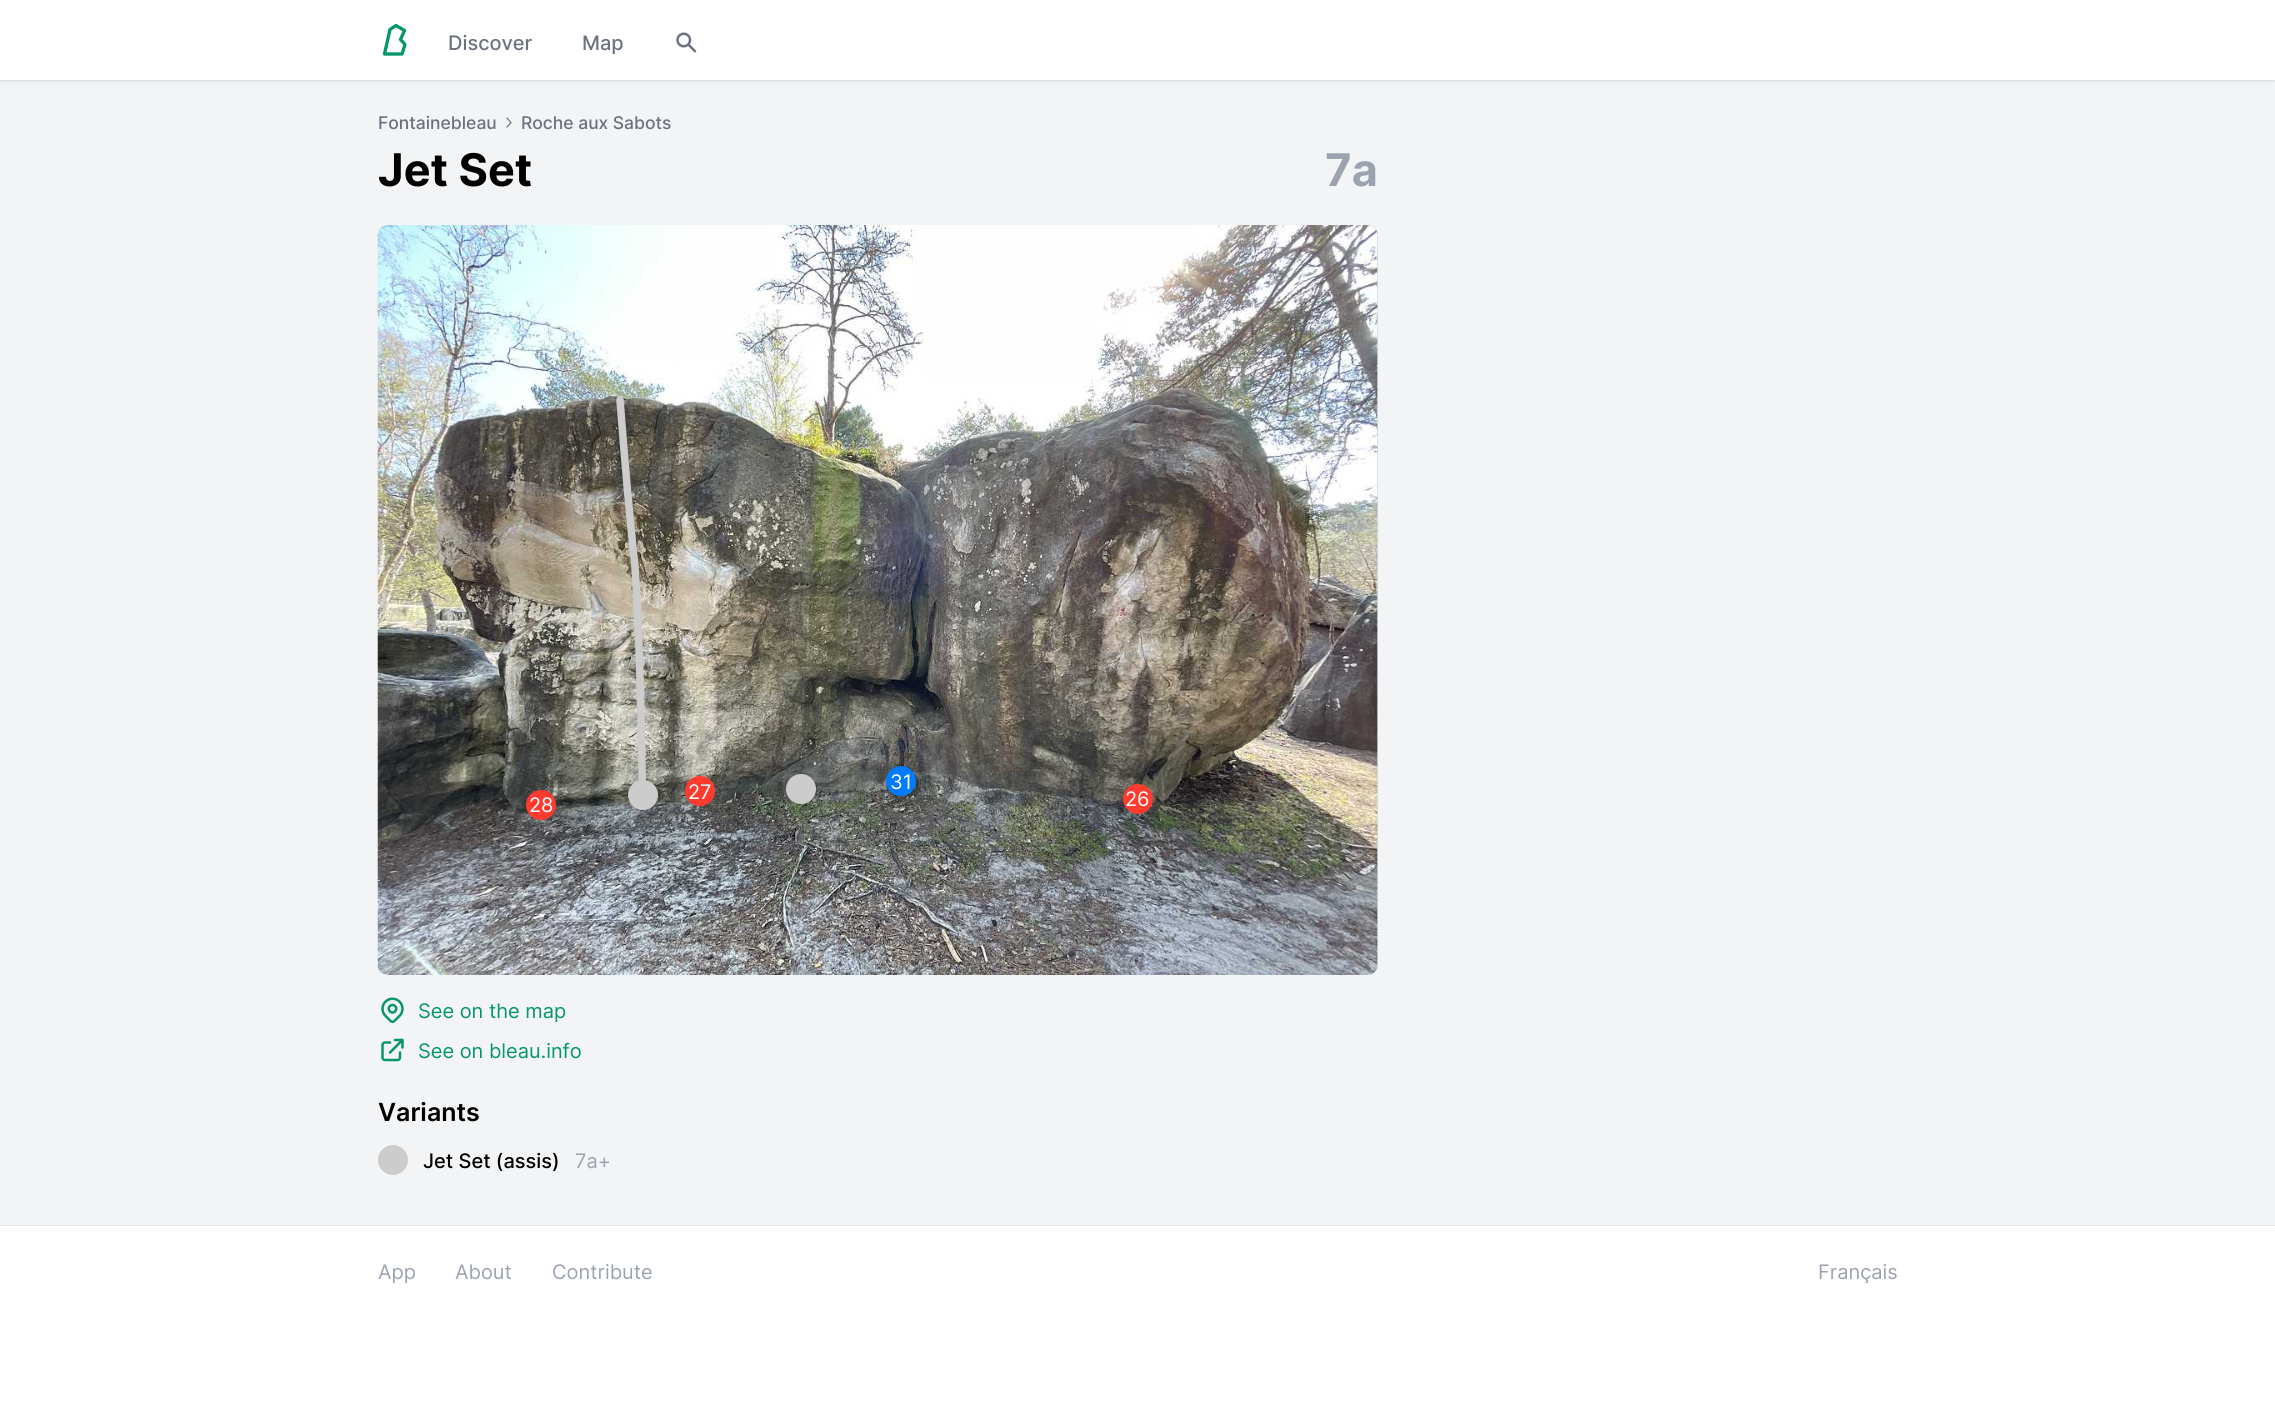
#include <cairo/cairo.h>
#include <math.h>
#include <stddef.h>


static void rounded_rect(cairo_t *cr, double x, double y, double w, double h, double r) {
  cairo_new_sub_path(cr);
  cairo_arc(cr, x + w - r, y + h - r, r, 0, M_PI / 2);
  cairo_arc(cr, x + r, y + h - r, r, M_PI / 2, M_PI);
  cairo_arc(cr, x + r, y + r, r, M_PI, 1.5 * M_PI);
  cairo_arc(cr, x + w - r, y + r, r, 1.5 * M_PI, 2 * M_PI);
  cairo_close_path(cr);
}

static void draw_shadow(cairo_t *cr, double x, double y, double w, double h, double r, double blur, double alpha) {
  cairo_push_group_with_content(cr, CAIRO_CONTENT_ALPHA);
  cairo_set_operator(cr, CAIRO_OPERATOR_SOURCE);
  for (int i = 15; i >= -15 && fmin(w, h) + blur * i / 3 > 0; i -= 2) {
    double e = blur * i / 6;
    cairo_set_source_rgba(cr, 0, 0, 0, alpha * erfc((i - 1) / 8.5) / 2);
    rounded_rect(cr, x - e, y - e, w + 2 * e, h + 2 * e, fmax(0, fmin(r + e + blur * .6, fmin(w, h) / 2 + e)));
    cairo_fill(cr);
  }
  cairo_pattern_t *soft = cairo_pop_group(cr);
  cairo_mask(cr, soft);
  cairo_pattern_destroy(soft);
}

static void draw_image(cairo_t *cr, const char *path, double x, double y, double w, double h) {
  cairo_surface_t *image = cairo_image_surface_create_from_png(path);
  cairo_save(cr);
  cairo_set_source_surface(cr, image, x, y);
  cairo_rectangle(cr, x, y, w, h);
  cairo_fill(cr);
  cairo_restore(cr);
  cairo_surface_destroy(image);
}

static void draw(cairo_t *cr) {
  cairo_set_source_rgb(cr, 1, 1, 1);
  cairo_paint(cr);
  cairo_set_source_rgb(cr, 243 / 255.0, 244 / 255.0, 246 / 255.0);
  cairo_rectangle(cr, 0, 80, 2275, 1145);
  cairo_fill(cr);
  cairo_set_source_rgb(cr, 0, 0, 0);
  draw_shadow(cr, 1, 3, 2273, 77, 0, 1, 0.1);
  draw_shadow(cr, 0, 1, 2275, 80, 0, 2, 0.1);
  cairo_set_source_rgb(cr, 1, 1, 1);
  cairo_rectangle(cr, 0, 0, 2275, 80);
  cairo_fill(cr);
  cairo_new_path(cr);
  cairo_move_to(cr, 384.5, 54);
  cairo_line_to(cr, 390, 29.5);
  cairo_line_to(cr, 396, 25.5);
  cairo_line_to(cr, 404.5, 30.5);
  cairo_line_to(cr, 400.5, 39.5);
  cairo_line_to(cr, 405, 44.5);
  cairo_line_to(cr, 402, 54);
  cairo_close_path(cr);
  cairo_set_source_rgb(cr, 5 / 255.0, 150 / 255.0, 105 / 255.0);
  cairo_set_line_width(cr, 3.3);
  cairo_set_line_join(cr, CAIRO_LINE_JOIN_ROUND);
  cairo_stroke(cr);
  draw_image(cr, "images/1.png", 676, 32, 21, 21);
  cairo_new_path(cr);
  cairo_move_to(cr, 507, 118);
  cairo_line_to(cr, 511, 122.5);
  cairo_line_to(cr, 507, 127);
  cairo_set_source_rgb(cr, 107 / 255.0, 114 / 255.0, 128 / 255.0);
  cairo_set_line_width(cr, 1.2);
  cairo_set_line_cap(cr, CAIRO_LINE_CAP_ROUND);
  cairo_stroke(cr);
  cairo_set_source_rgb(cr, 209 / 255.0, 213 / 255.0, 219 / 255.0);
  rounded_rect(cr, 378, 225, 1000, 750, 10);
  cairo_fill(cr);
  draw_image(cr, "images/2.png", 377, 225, 1001, 750);
  cairo_new_path(cr);
  cairo_move_to(cr, 642.5, 795);
  cairo_curve_to(cr, 641, 691.5, 638.5, 616, 635, 567.5);
  cairo_curve_to(cr, 630, 521, 625, 465, 620, 400);
  cairo_set_source_rgb(cr, 204 / 255.0, 204 / 255.0, 204 / 255.0);
  cairo_set_line_width(cr, 7.5);
  cairo_set_line_join(cr, CAIRO_LINE_JOIN_MITER);
  cairo_stroke(cr);
  cairo_arc(cr, 801, 789, 15, 0, 2 * M_PI);
  cairo_fill(cr);
  cairo_set_source_rgb(cr, 1 / 255.0, 122 / 255.0, 1);
  cairo_arc(cr, 901, 781, 15, 0, 2 * M_PI);
  cairo_fill(cr);
  cairo_set_source_rgb(cr, 1, 59 / 255.0, 47 / 255.0);
  cairo_arc(cr, 541, 805, 15, 0, 2 * M_PI);
  cairo_fill(cr);
  cairo_set_source_rgb(cr, 204 / 255.0, 204 / 255.0, 204 / 255.0);
  cairo_arc(cr, 643, 795, 15, 0, 2 * M_PI);
  cairo_fill(cr);
  cairo_set_source_rgb(cr, 1, 59 / 255.0, 47 / 255.0);
  cairo_arc(cr, 700, 791, 15, 0, 2 * M_PI);
  cairo_fill(cr);
  cairo_arc(cr, 1138, 799, 15, 0, 2 * M_PI);
  cairo_fill(cr);
  draw_image(cr, "images/3.png", 381, 997, 23, 27);
  draw_image(cr, "images/4.png", 381, 1038, 23, 24);
  cairo_set_source_rgb(cr, 204 / 255.0, 204 / 255.0, 204 / 255.0);
  cairo_arc(cr, 393, 1160, 15, 0, 2 * M_PI);
  cairo_fill(cr);
  cairo_set_source_rgb(cr, 229 / 255.0, 231 / 255.0, 235 / 255.0);
  cairo_rectangle(cr, 0, 1225, 2275, 1);
  cairo_fill(cr);
  cairo_select_font_face(cr, "Inter Medium", CAIRO_FONT_SLANT_NORMAL, CAIRO_FONT_WEIGHT_NORMAL);
  cairo_set_font_size(cr, 20);
  cairo_set_source_rgb(cr, 107 / 255.0, 114 / 255.0, 128 / 255.0);
  cairo_move_to(cr, 448, 50);
  cairo_show_text(cr, "Discover");
  cairo_move_to(cr, 582, 50);
  cairo_show_text(cr, "Map");
  cairo_set_font_size(cr, 17.5);
  cairo_move_to(cr, 378, 129);
  cairo_show_text(cr, "Fontainebleau");
  cairo_move_to(cr, 521, 129);
  cairo_show_text(cr, "Roche aux Sabots");
  cairo_select_font_face(cr, "Inter", CAIRO_FONT_SLANT_NORMAL, CAIRO_FONT_WEIGHT_BOLD);
  cairo_set_font_size(cr, 45);
  cairo_set_source_rgb(cr, 0, 0, 0);
  cairo_move_to(cr, 378, 186);
  cairo_show_text(cr, "Jet Set");
  cairo_set_source_rgb(cr, 156 / 255.0, 163 / 255.0, 175 / 255.0);
  cairo_move_to(cr, 1325, 186);
  cairo_show_text(cr, "7a");
  cairo_select_font_face(cr, "Inter", CAIRO_FONT_SLANT_NORMAL, CAIRO_FONT_WEIGHT_NORMAL);
  cairo_set_font_size(cr, 20);
  cairo_set_source_rgb(cr, 1, 1, 1);
  cairo_move_to(cr, 890, 789);
  cairo_show_text(cr, "31");
  cairo_move_to(cr, 529, 812);
  cairo_show_text(cr, "28");
  cairo_move_to(cr, 688, 799);
  cairo_show_text(cr, "27");
  cairo_move_to(cr, 1125, 806);
  cairo_show_text(cr, "26");
  cairo_set_source_rgb(cr, 5 / 255.0, 150 / 255.0, 105 / 255.0);
  cairo_move_to(cr, 418, 1018);
  cairo_show_text(cr, "See on the map");
  cairo_move_to(cr, 418, 1058);
  cairo_show_text(cr, "See on bleau.info");
  cairo_select_font_face(cr, "Inter SemiBold", CAIRO_FONT_SLANT_NORMAL, CAIRO_FONT_WEIGHT_NORMAL);
  cairo_set_font_size(cr, 25);
  cairo_set_source_rgb(cr, 0, 0, 0);
  cairo_move_to(cr, 378, 1121);
  cairo_show_text(cr, "Variants");
  cairo_select_font_face(cr, "Inter Medium", CAIRO_FONT_SLANT_NORMAL, CAIRO_FONT_WEIGHT_NORMAL);
  cairo_set_font_size(cr, 20);
  cairo_move_to(cr, 423, 1168);
  cairo_show_text(cr, "Jet Set (assis)");
  cairo_select_font_face(cr, "Inter", CAIRO_FONT_SLANT_NORMAL, CAIRO_FONT_WEIGHT_NORMAL);
  cairo_set_source_rgb(cr, 156 / 255.0, 163 / 255.0, 175 / 255.0);
  cairo_move_to(cr, 575, 1168);
  cairo_show_text(cr, "7a+");
  cairo_move_to(cr, 378, 1279);
  cairo_show_text(cr, "App");
  cairo_move_to(cr, 455, 1279);
  cairo_show_text(cr, "About");
  cairo_move_to(cr, 552, 1279);
  cairo_show_text(cr, "Contribute");
  cairo_move_to(cr, 1818, 1279);
  cairo_show_text(cr, "Français");
}

int main(void) {
  cairo_surface_t *surface = cairo_image_surface_create(CAIRO_FORMAT_RGB24, 2275, 1415);
  cairo_t *cr = cairo_create(surface);
  cairo_font_options_t *options = cairo_font_options_create();
  cairo_font_options_set_hint_metrics(options, CAIRO_HINT_METRICS_OFF);
  cairo_font_options_set_hint_style(options, CAIRO_HINT_STYLE_NONE);
  cairo_set_font_options(cr, options);
  cairo_set_miter_limit(cr, 4);
  draw(cr);
  cairo_surface_write_to_png(surface, "out.png");
  cairo_font_options_destroy(options);
  cairo_destroy(cr);
  cairo_surface_destroy(surface);
  return 0;
}
